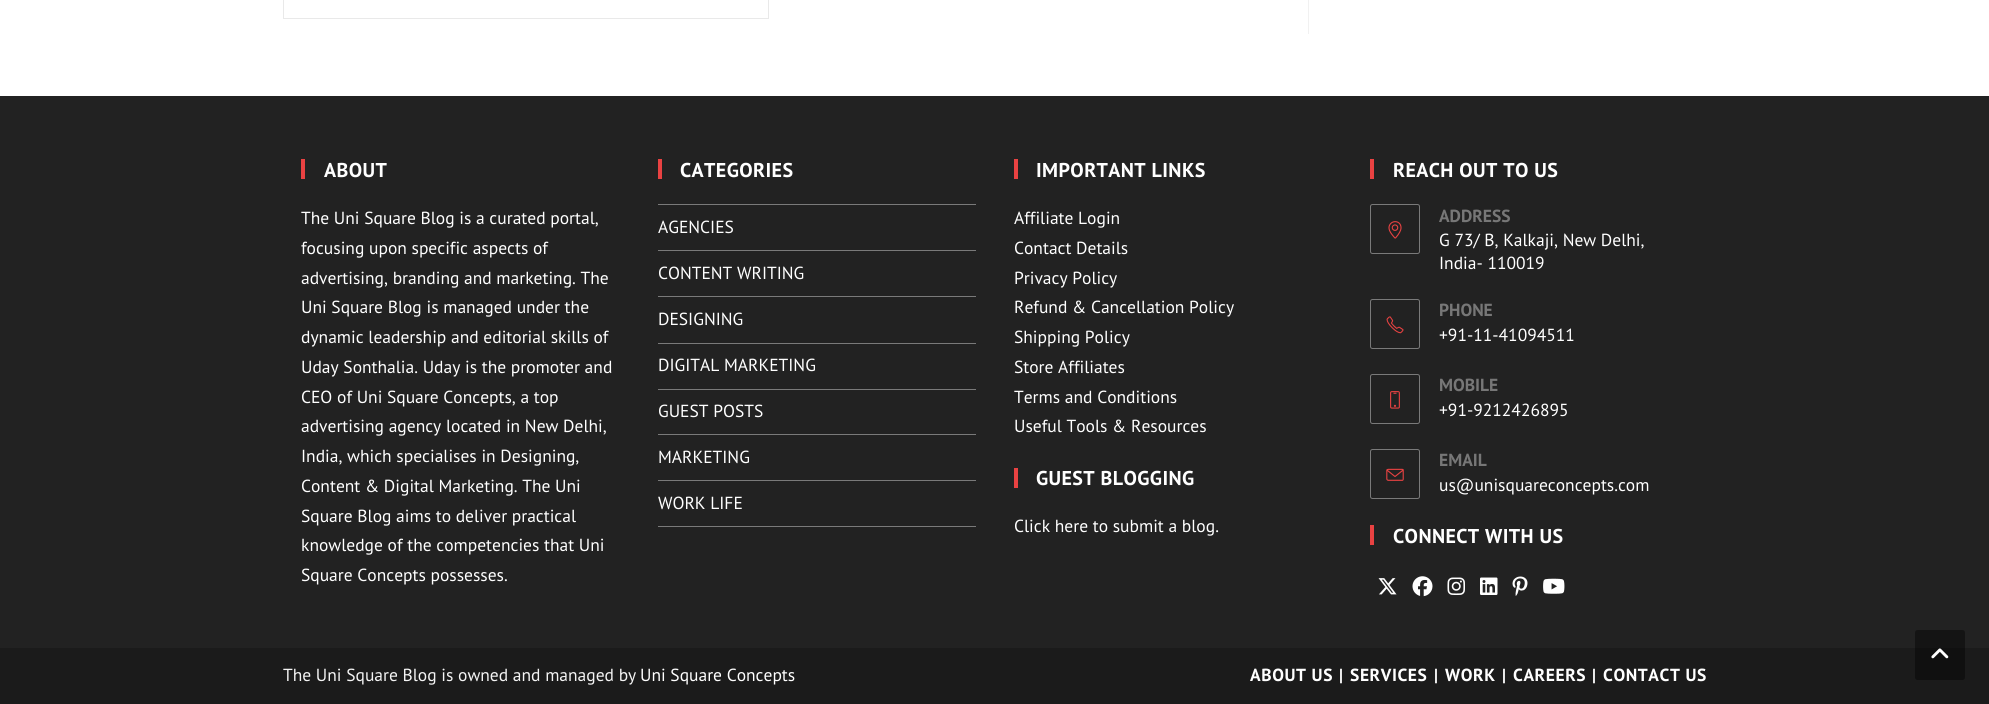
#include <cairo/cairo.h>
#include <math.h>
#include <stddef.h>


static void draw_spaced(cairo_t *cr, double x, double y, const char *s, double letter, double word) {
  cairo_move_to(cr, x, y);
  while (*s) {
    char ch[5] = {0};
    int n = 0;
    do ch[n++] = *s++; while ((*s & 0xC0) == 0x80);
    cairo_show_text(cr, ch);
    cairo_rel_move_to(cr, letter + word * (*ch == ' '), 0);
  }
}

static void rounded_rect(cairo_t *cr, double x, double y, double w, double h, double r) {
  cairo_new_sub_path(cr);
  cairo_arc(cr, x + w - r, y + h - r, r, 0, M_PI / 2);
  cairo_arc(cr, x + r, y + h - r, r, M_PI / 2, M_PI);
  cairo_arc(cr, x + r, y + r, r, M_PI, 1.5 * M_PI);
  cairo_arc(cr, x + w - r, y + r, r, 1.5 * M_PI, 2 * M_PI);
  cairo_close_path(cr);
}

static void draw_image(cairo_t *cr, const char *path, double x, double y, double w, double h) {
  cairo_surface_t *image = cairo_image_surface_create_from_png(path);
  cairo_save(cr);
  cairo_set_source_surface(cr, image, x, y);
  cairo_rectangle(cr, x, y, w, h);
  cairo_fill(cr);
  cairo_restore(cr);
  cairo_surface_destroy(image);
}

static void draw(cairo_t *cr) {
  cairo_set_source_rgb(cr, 1, 1, 1);
  cairo_paint(cr);
  cairo_set_source_rgb(cr, 241 / 255.0, 241 / 255.0, 241 / 255.0);
  cairo_rectangle(cr, 1308, 0, 1, 34);
  cairo_fill(cr);
  cairo_rectangle(cr, 283.5, -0.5, 485, 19);
  cairo_set_source_rgb(cr, 233 / 255.0, 233 / 255.0, 233 / 255.0);
  cairo_set_line_width(cr, 1);
  cairo_stroke(cr);
  cairo_set_source_rgb(cr, 34 / 255.0, 34 / 255.0, 34 / 255.0);
  cairo_rectangle(cr, 0, 96, 1989, 552);
  cairo_fill(cr);
  cairo_set_source_rgb(cr, 233 / 255.0, 66 / 255.0, 66 / 255.0);
  cairo_rectangle(cr, 301, 159, 4, 20);
  cairo_fill(cr);
  cairo_rectangle(cr, 658, 159, 4, 20);
  cairo_fill(cr);
  cairo_set_source_rgb(cr, 122 / 255.0, 122 / 255.0, 122 / 255.0);
  cairo_rectangle(cr, 658, 204, 318, 1);
  cairo_fill(cr);
  cairo_rectangle(cr, 658, 250, 318, 1);
  cairo_fill(cr);
  cairo_rectangle(cr, 658, 296, 318, 1);
  cairo_fill(cr);
  cairo_rectangle(cr, 658, 343, 318, 1);
  cairo_fill(cr);
  cairo_rectangle(cr, 658, 389, 318, 1);
  cairo_fill(cr);
  cairo_rectangle(cr, 658, 434, 318, 1);
  cairo_fill(cr);
  cairo_rectangle(cr, 658, 480, 318, 1);
  cairo_fill(cr);
  cairo_rectangle(cr, 658, 526, 318, 1);
  cairo_fill(cr);
  cairo_set_source_rgb(cr, 233 / 255.0, 66 / 255.0, 66 / 255.0);
  cairo_rectangle(cr, 1014, 159, 4, 20);
  cairo_fill(cr);
  cairo_rectangle(cr, 1014, 468, 4, 20);
  cairo_fill(cr);
  cairo_rectangle(cr, 1370, 159, 4, 20);
  cairo_fill(cr);
  rounded_rect(cr, 1370.5, 204.5, 49, 49, 2);
  cairo_set_source_rgb(cr, 122 / 255.0, 122 / 255.0, 122 / 255.0);
  cairo_stroke(cr);
  draw_image(cr, "images/1.png", 1388, 221, 14, 18);
  rounded_rect(cr, 1370.5, 299.5, 49, 49, 2);
  cairo_stroke(cr);
  draw_image(cr, "images/2.png", 1386, 316, 18, 18);
  rounded_rect(cr, 1370.5, 374.5, 49, 49, 2);
  cairo_stroke(cr);
  draw_image(cr, "images/3.png", 1390, 391, 10, 18);
  rounded_rect(cr, 1370.5, 449.5, 49, 49, 2);
  cairo_stroke(cr);
  draw_image(cr, "images/4.png", 1386, 468, 18, 13);
  cairo_set_source_rgb(cr, 233 / 255.0, 66 / 255.0, 66 / 255.0);
  cairo_rectangle(cr, 1370, 525, 4, 20);
  cairo_fill(cr);
  draw_image(cr, "images/5.png", 1378, 578, 19, 17);
  draw_image(cr, "images/6.png", 1412, 576, 21, 21);
  draw_image(cr, "images/7.png", 1447, 577, 18, 18);
  draw_image(cr, "images/8.png", 1480, 577, 18, 18);
  draw_image(cr, "images/9.png", 1512, 576, 16, 20);
  draw_image(cr, "images/10.png", 1543, 578, 22, 16);
  cairo_set_source_rgb(cr, 27 / 255.0, 27 / 255.0, 27 / 255.0);
  cairo_rectangle(cr, 0, 648, 1989, 56);
  cairo_fill(cr);
  cairo_set_source_rgba(cr, 0, 0, 0, 0.4);
  rounded_rect(cr, 1915, 630, 50, 50, 2.5);
  cairo_fill(cr);
  draw_image(cr, "images/11.png", 1931, 648, 18, 11);
  cairo_select_font_face(cr, "PT Sans", CAIRO_FONT_SLANT_NORMAL, CAIRO_FONT_WEIGHT_BOLD);
  cairo_set_font_size(cr, 20);
  cairo_set_source_rgb(cr, 1, 1, 1);
  draw_spaced(cr, 324, 177, "ABOUT", 0.4, 0);
  cairo_select_font_face(cr, "PT Sans", CAIRO_FONT_SLANT_NORMAL, CAIRO_FONT_WEIGHT_NORMAL);
  cairo_set_font_size(cr, 17.5);
  cairo_move_to(cr, 301, 224);
  cairo_show_text(cr, "The Uni Square Blog is a curated portal,");
  cairo_move_to(cr, 301, 254);
  cairo_show_text(cr, "focusing upon specific aspects of");
  cairo_move_to(cr, 301, 284);
  cairo_show_text(cr, "advertising, branding and marketing. The");
  cairo_move_to(cr, 301, 313);
  cairo_show_text(cr, "Uni Square Blog is managed under the");
  cairo_move_to(cr, 301, 343);
  cairo_show_text(cr, "dynamic leadership and editorial skills of");
  cairo_move_to(cr, 301, 373);
  cairo_show_text(cr, "Uday Sonthalia. Uday is the promoter and");
  cairo_move_to(cr, 301, 403);
  cairo_show_text(cr, "CEO of Uni Square Concepts, a top");
  cairo_move_to(cr, 301, 432);
  cairo_show_text(cr, "advertising agency located in New Delhi,");
  cairo_move_to(cr, 301, 462);
  cairo_show_text(cr, "India, which specialises in Designing,");
  cairo_move_to(cr, 301, 492);
  cairo_show_text(cr, "Content & Digital Marketing. The Uni");
  cairo_move_to(cr, 301, 522);
  cairo_show_text(cr, "Square Blog aims to deliver practical");
  cairo_move_to(cr, 301, 551);
  cairo_show_text(cr, "knowledge of the competencies that Uni");
  cairo_move_to(cr, 301, 581);
  cairo_show_text(cr, "Square Concepts possesses.");
  cairo_select_font_face(cr, "PT Sans", CAIRO_FONT_SLANT_NORMAL, CAIRO_FONT_WEIGHT_BOLD);
  cairo_set_font_size(cr, 20);
  draw_spaced(cr, 680, 177, "CATEGORIES", 0.4, 0);
  cairo_select_font_face(cr, "PT Sans", CAIRO_FONT_SLANT_NORMAL, CAIRO_FONT_WEIGHT_NORMAL);
  cairo_set_font_size(cr, 17.5);
  cairo_move_to(cr, 658, 233);
  cairo_show_text(cr, "AGENCIES");
  cairo_move_to(cr, 658, 279);
  cairo_show_text(cr, "CONTENT WRITING");
  cairo_move_to(cr, 658, 325);
  cairo_show_text(cr, "DESIGNING");
  cairo_move_to(cr, 658, 371);
  cairo_show_text(cr, "DIGITAL MARKETING");
  cairo_move_to(cr, 658, 417);
  cairo_show_text(cr, "GUEST POSTS");
  cairo_move_to(cr, 658, 463);
  cairo_show_text(cr, "MARKETING");
  cairo_move_to(cr, 658, 509);
  cairo_show_text(cr, "WORK LIFE");
  cairo_select_font_face(cr, "PT Sans", CAIRO_FONT_SLANT_NORMAL, CAIRO_FONT_WEIGHT_BOLD);
  cairo_set_font_size(cr, 20);
  draw_spaced(cr, 1036, 177, "IMPORTANT LINKS", 0.4, 0);
  cairo_select_font_face(cr, "PT Sans", CAIRO_FONT_SLANT_NORMAL, CAIRO_FONT_WEIGHT_NORMAL);
  cairo_set_font_size(cr, 17.5);
  cairo_move_to(cr, 1014, 224);
  cairo_show_text(cr, "Affiliate Login");
  cairo_move_to(cr, 1014, 254);
  cairo_show_text(cr, "Contact Details");
  cairo_move_to(cr, 1014, 284);
  cairo_show_text(cr, "Privacy Policy");
  cairo_move_to(cr, 1014, 313);
  cairo_show_text(cr, "Refund & Cancellation Policy");
  cairo_move_to(cr, 1014, 343);
  cairo_show_text(cr, "Shipping Policy");
  cairo_move_to(cr, 1014, 373);
  cairo_show_text(cr, "Store Affiliates");
  cairo_move_to(cr, 1014, 403);
  cairo_show_text(cr, "Terms and Conditions");
  cairo_move_to(cr, 1014, 432);
  cairo_show_text(cr, "Useful Tools & Resources");
  cairo_select_font_face(cr, "PT Sans", CAIRO_FONT_SLANT_NORMAL, CAIRO_FONT_WEIGHT_BOLD);
  cairo_set_font_size(cr, 20);
  draw_spaced(cr, 1036, 485, "GUEST BLOGGING", 0.4, 0);
  cairo_select_font_face(cr, "PT Sans", CAIRO_FONT_SLANT_NORMAL, CAIRO_FONT_WEIGHT_NORMAL);
  cairo_set_font_size(cr, 17.5);
  cairo_move_to(cr, 1014, 532);
  cairo_show_text(cr, "Click here to submit a blog.");
  cairo_select_font_face(cr, "PT Sans", CAIRO_FONT_SLANT_NORMAL, CAIRO_FONT_WEIGHT_BOLD);
  cairo_set_font_size(cr, 20);
  draw_spaced(cr, 1393, 177, "REACH OUT TO US", 0.4, 0);
  cairo_set_font_size(cr, 17.5);
  cairo_set_source_rgb(cr, 119 / 255.0, 119 / 255.0, 119 / 255.0);
  cairo_move_to(cr, 1439, 222);
  cairo_show_text(cr, "ADDRESS");
  cairo_select_font_face(cr, "PT Sans", CAIRO_FONT_SLANT_NORMAL, CAIRO_FONT_WEIGHT_NORMAL);
  cairo_set_source_rgb(cr, 1, 1, 1);
  cairo_move_to(cr, 1439, 246);
  cairo_show_text(cr, "G 73/ B, Kalkaji, New Delhi,");
  cairo_move_to(cr, 1439, 269);
  cairo_show_text(cr, "India- 110019");
  cairo_select_font_face(cr, "PT Sans", CAIRO_FONT_SLANT_NORMAL, CAIRO_FONT_WEIGHT_BOLD);
  cairo_set_source_rgb(cr, 119 / 255.0, 119 / 255.0, 119 / 255.0);
  cairo_move_to(cr, 1439, 316);
  cairo_show_text(cr, "PHONE");
  cairo_select_font_face(cr, "PT Sans", CAIRO_FONT_SLANT_NORMAL, CAIRO_FONT_WEIGHT_NORMAL);
  cairo_set_source_rgb(cr, 1, 1, 1);
  cairo_move_to(cr, 1439, 341);
  cairo_show_text(cr, "+91-11-41094511");
  cairo_select_font_face(cr, "PT Sans", CAIRO_FONT_SLANT_NORMAL, CAIRO_FONT_WEIGHT_BOLD);
  cairo_set_source_rgb(cr, 119 / 255.0, 119 / 255.0, 119 / 255.0);
  cairo_move_to(cr, 1439, 391);
  cairo_show_text(cr, "MOBILE");
  cairo_select_font_face(cr, "PT Sans", CAIRO_FONT_SLANT_NORMAL, CAIRO_FONT_WEIGHT_NORMAL);
  cairo_set_source_rgb(cr, 1, 1, 1);
  cairo_move_to(cr, 1439, 416);
  cairo_show_text(cr, "+91-9212426895");
  cairo_select_font_face(cr, "PT Sans", CAIRO_FONT_SLANT_NORMAL, CAIRO_FONT_WEIGHT_BOLD);
  cairo_set_source_rgb(cr, 119 / 255.0, 119 / 255.0, 119 / 255.0);
  cairo_move_to(cr, 1439, 466);
  cairo_show_text(cr, "EMAIL");
  cairo_select_font_face(cr, "PT Sans", CAIRO_FONT_SLANT_NORMAL, CAIRO_FONT_WEIGHT_NORMAL);
  cairo_set_source_rgb(cr, 1, 1, 1);
  cairo_move_to(cr, 1439, 491);
  cairo_show_text(cr, "us@unisquareconcepts.com");
  cairo_select_font_face(cr, "PT Sans", CAIRO_FONT_SLANT_NORMAL, CAIRO_FONT_WEIGHT_BOLD);
  cairo_set_font_size(cr, 20);
  draw_spaced(cr, 1393, 543, "CONNECT WITH US", 0.4, 0);
  cairo_select_font_face(cr, "PT Sans", CAIRO_FONT_SLANT_NORMAL, CAIRO_FONT_WEIGHT_NORMAL);
  cairo_set_font_size(cr, 17.5);
  cairo_set_source_rgb(cr, 244 / 255.0, 244 / 255.0, 244 / 255.0);
  cairo_move_to(cr, 283, 681);
  cairo_show_text(cr, "The Uni Square Blog is owned and managed by");
  cairo_set_source_rgb(cr, 1, 1, 1);
  cairo_move_to(cr, 640, 681);
  cairo_show_text(cr, "Uni Square Concepts");
  cairo_select_font_face(cr, "PT Sans", CAIRO_FONT_SLANT_NORMAL, CAIRO_FONT_WEIGHT_BOLD);
  draw_spaced(cr, 1250, 681, "ABOUT US", 0.6, 0);
  cairo_set_source_rgb(cr, 244 / 255.0, 244 / 255.0, 244 / 255.0);
  draw_spaced(cr, 1339, 681, "|", 0.6, 0);
  cairo_set_source_rgb(cr, 1, 1, 1);
  draw_spaced(cr, 1350, 681, "SERVICES", 0.6, 0);
  cairo_set_source_rgb(cr, 244 / 255.0, 244 / 255.0, 244 / 255.0);
  draw_spaced(cr, 1434, 681, "|", 0.6, 0);
  cairo_set_source_rgb(cr, 1, 1, 1);
  draw_spaced(cr, 1445, 681, "WORK", 0.6, 0);
  cairo_set_source_rgb(cr, 244 / 255.0, 244 / 255.0, 244 / 255.0);
  draw_spaced(cr, 1502, 681, "|", 0.6, 0);
  cairo_set_source_rgb(cr, 1, 1, 1);
  draw_spaced(cr, 1513, 681, "CAREERS", 0.6, 0);
  cairo_set_source_rgb(cr, 244 / 255.0, 244 / 255.0, 244 / 255.0);
  draw_spaced(cr, 1592, 681, "|", 0.6, 0);
  cairo_set_source_rgb(cr, 1, 1, 1);
  draw_spaced(cr, 1603, 681, "CONTACT US", 0.6, 0);
}

int main(void) {
  cairo_surface_t *surface = cairo_image_surface_create(CAIRO_FORMAT_RGB24, 1989, 704);
  cairo_t *cr = cairo_create(surface);
  cairo_font_options_t *options = cairo_font_options_create();
  cairo_font_options_set_hint_metrics(options, CAIRO_HINT_METRICS_OFF);
  cairo_font_options_set_hint_style(options, CAIRO_HINT_STYLE_NONE);
  cairo_set_font_options(cr, options);
  cairo_set_miter_limit(cr, 4);
  draw(cr);
  cairo_surface_write_to_png(surface, "out.png");
  cairo_font_options_destroy(options);
  cairo_destroy(cr);
  cairo_surface_destroy(surface);
  return 0;
}
